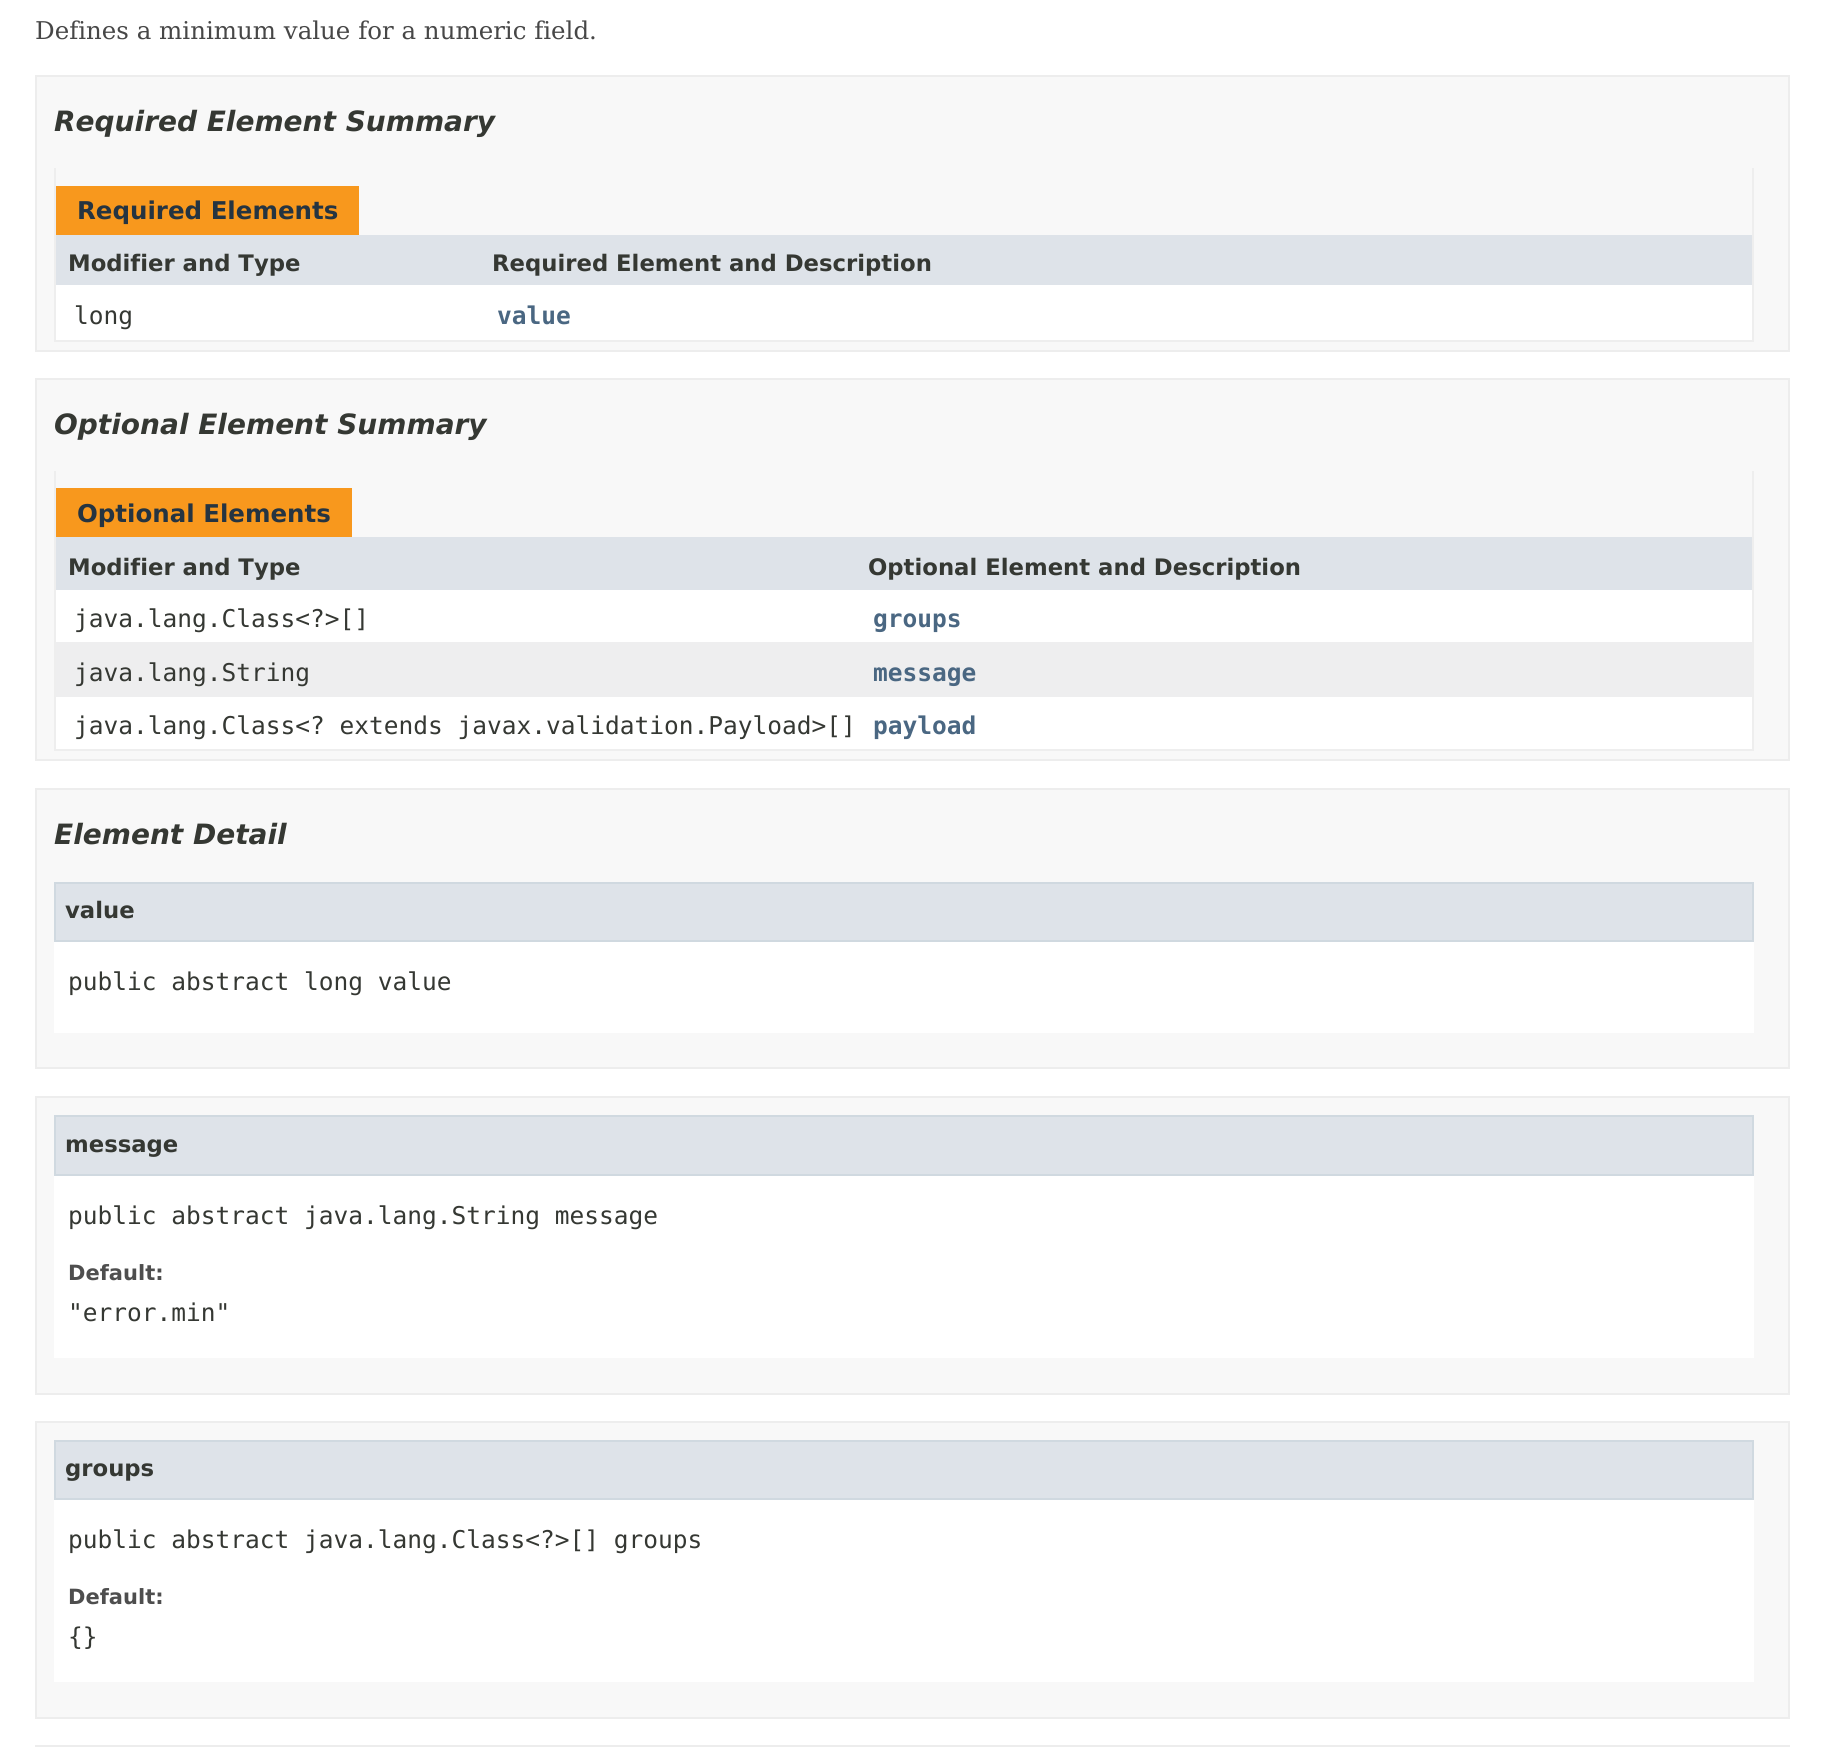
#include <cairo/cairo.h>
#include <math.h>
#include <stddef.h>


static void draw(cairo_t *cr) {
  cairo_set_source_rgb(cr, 1, 1, 1);
  cairo_paint(cr);
  cairo_set_source_rgb(cr, 248 / 255.0, 248 / 255.0, 248 / 255.0);
  cairo_rectangle(cr, 36, 76, 1753, 275);
  cairo_fill_preserve(cr);
  cairo_set_source_rgb(cr, 237 / 255.0, 237 / 255.0, 237 / 255.0);
  cairo_stroke(cr);
  cairo_set_source_rgb(cr, 238 / 255.0, 238 / 255.0, 238 / 255.0);
  cairo_rectangle(cr, 1752, 168, 2, 173);
  cairo_fill(cr);
  cairo_rectangle(cr, 54, 340, 1700, 2);
  cairo_fill(cr);
  cairo_rectangle(cr, 54, 168, 2, 173);
  cairo_fill(cr);
  cairo_set_source_rgb(cr, 248 / 255.0, 152 / 255.0, 29 / 255.0);
  cairo_rectangle(cr, 56, 186, 303, 49);
  cairo_fill(cr);
  cairo_set_source_rgb(cr, 222 / 255.0, 227 / 255.0, 233 / 255.0);
  cairo_rectangle(cr, 56, 235, 1696, 50);
  cairo_fill(cr);
  cairo_set_source_rgb(cr, 1, 1, 1);
  cairo_rectangle(cr, 56, 285, 1696, 55);
  cairo_fill(cr);
  cairo_set_source_rgb(cr, 248 / 255.0, 248 / 255.0, 248 / 255.0);
  cairo_rectangle(cr, 36, 379, 1753, 381);
  cairo_fill_preserve(cr);
  cairo_set_source_rgb(cr, 237 / 255.0, 237 / 255.0, 237 / 255.0);
  cairo_stroke(cr);
  cairo_set_source_rgb(cr, 238 / 255.0, 238 / 255.0, 238 / 255.0);
  cairo_rectangle(cr, 1752, 471, 2, 280);
  cairo_fill(cr);
  cairo_rectangle(cr, 54, 749, 1700, 2);
  cairo_fill(cr);
  cairo_rectangle(cr, 54, 471, 2, 280);
  cairo_fill(cr);
  cairo_set_source_rgb(cr, 248 / 255.0, 152 / 255.0, 29 / 255.0);
  cairo_rectangle(cr, 56, 488, 296, 49);
  cairo_fill(cr);
  cairo_set_source_rgb(cr, 222 / 255.0, 227 / 255.0, 233 / 255.0);
  cairo_rectangle(cr, 56, 537, 1696, 53);
  cairo_fill(cr);
  cairo_set_source_rgb(cr, 1, 1, 1);
  cairo_rectangle(cr, 56, 590, 1696, 52);
  cairo_fill(cr);
  cairo_set_source_rgb(cr, 238 / 255.0, 238 / 255.0, 239 / 255.0);
  cairo_rectangle(cr, 56, 642, 1696, 55);
  cairo_fill(cr);
  cairo_set_source_rgb(cr, 1, 1, 1);
  cairo_rectangle(cr, 56, 697, 1696, 52);
  cairo_fill(cr);
  cairo_set_source_rgb(cr, 248 / 255.0, 248 / 255.0, 248 / 255.0);
  cairo_rectangle(cr, 36, 789, 1753, 279);
  cairo_fill_preserve(cr);
  cairo_set_source_rgb(cr, 237 / 255.0, 237 / 255.0, 237 / 255.0);
  cairo_stroke(cr);
  cairo_set_source_rgb(cr, 1, 1, 1);
  cairo_rectangle(cr, 54, 942, 1700, 91);
  cairo_fill(cr);
  cairo_set_source_rgb(cr, 222 / 255.0, 227 / 255.0, 233 / 255.0);
  cairo_rectangle(cr, 55, 883, 1698, 58);
  cairo_fill_preserve(cr);
  cairo_set_source_rgb(cr, 208 / 255.0, 217 / 255.0, 224 / 255.0);
  cairo_stroke(cr);
  cairo_set_source_rgb(cr, 248 / 255.0, 248 / 255.0, 248 / 255.0);
  cairo_rectangle(cr, 36, 1097, 1753, 297);
  cairo_fill_preserve(cr);
  cairo_set_source_rgb(cr, 237 / 255.0, 237 / 255.0, 237 / 255.0);
  cairo_stroke(cr);
  cairo_set_source_rgb(cr, 1, 1, 1);
  cairo_rectangle(cr, 54, 1176, 1700, 182);
  cairo_fill(cr);
  cairo_set_source_rgb(cr, 222 / 255.0, 227 / 255.0, 233 / 255.0);
  cairo_rectangle(cr, 55, 1116, 1698, 59);
  cairo_fill_preserve(cr);
  cairo_set_source_rgb(cr, 208 / 255.0, 217 / 255.0, 224 / 255.0);
  cairo_stroke(cr);
  cairo_set_source_rgb(cr, 248 / 255.0, 248 / 255.0, 248 / 255.0);
  cairo_rectangle(cr, 36, 1422, 1753, 296);
  cairo_fill_preserve(cr);
  cairo_set_source_rgb(cr, 237 / 255.0, 237 / 255.0, 237 / 255.0);
  cairo_stroke(cr);
  cairo_set_source_rgb(cr, 1, 1, 1);
  cairo_rectangle(cr, 54, 1500, 1700, 182);
  cairo_fill(cr);
  cairo_set_source_rgb(cr, 222 / 255.0, 227 / 255.0, 233 / 255.0);
  cairo_rectangle(cr, 55, 1441, 1698, 58);
  cairo_fill_preserve(cr);
  cairo_set_source_rgb(cr, 208 / 255.0, 217 / 255.0, 224 / 255.0);
  cairo_stroke(cr);
  cairo_rectangle(cr, 36, 1746, 1753, 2);
  cairo_set_source_rgb(cr, 237 / 255.0, 237 / 255.0, 237 / 255.0);
  cairo_stroke(cr);
  cairo_select_font_face(cr, "DejaVu Serif", CAIRO_FONT_SLANT_NORMAL, CAIRO_FONT_WEIGHT_NORMAL);
  cairo_set_font_size(cr, 24.5);
  cairo_set_source_rgb(cr, 71 / 255.0, 71 / 255.0, 71 / 255.0);
  cairo_move_to(cr, 35, 39);
  cairo_show_text(cr, "Defines a minimum value for a numeric field.");
  cairo_select_font_face(cr, "DejaVu Sans", CAIRO_FONT_SLANT_ITALIC, CAIRO_FONT_WEIGHT_BOLD);
  cairo_set_font_size(cr, 28);
  cairo_set_source_rgb(cr, 53 / 255.0, 56 / 255.0, 51 / 255.0);
  cairo_move_to(cr, 54, 131);
  cairo_show_text(cr, "Required Element Summary");
  cairo_select_font_face(cr, "DejaVu Sans", CAIRO_FONT_SLANT_NORMAL, CAIRO_FONT_WEIGHT_BOLD);
  cairo_set_font_size(cr, 24.5);
  cairo_set_source_rgb(cr, 37 / 255.0, 52 / 255.0, 65 / 255.0);
  cairo_move_to(cr, 77, 219);
  cairo_show_text(cr, "Required Elements");
  cairo_set_font_size(cr, 22.75);
  cairo_set_source_rgb(cr, 53 / 255.0, 56 / 255.0, 51 / 255.0);
  cairo_move_to(cr, 68, 271);
  cairo_show_text(cr, "Modifier and Type");
  cairo_move_to(cr, 492, 271);
  cairo_show_text(cr, "Required Element and Description");
  cairo_select_font_face(cr, "DejaVu Sans Mono", CAIRO_FONT_SLANT_NORMAL, CAIRO_FONT_WEIGHT_NORMAL);
  cairo_set_font_size(cr, 24.5);
  cairo_move_to(cr, 74, 324);
  cairo_show_text(cr, "long");
  cairo_select_font_face(cr, "DejaVu Sans Mono", CAIRO_FONT_SLANT_NORMAL, CAIRO_FONT_WEIGHT_BOLD);
  cairo_set_source_rgb(cr, 74 / 255.0, 103 / 255.0, 130 / 255.0);
  cairo_move_to(cr, 497, 324);
  cairo_show_text(cr, "value");
  cairo_select_font_face(cr, "DejaVu Sans", CAIRO_FONT_SLANT_ITALIC, CAIRO_FONT_WEIGHT_BOLD);
  cairo_set_font_size(cr, 28);
  cairo_set_source_rgb(cr, 53 / 255.0, 56 / 255.0, 51 / 255.0);
  cairo_move_to(cr, 54, 434);
  cairo_show_text(cr, "Optional Element Summary");
  cairo_select_font_face(cr, "DejaVu Sans", CAIRO_FONT_SLANT_NORMAL, CAIRO_FONT_WEIGHT_BOLD);
  cairo_set_font_size(cr, 24.5);
  cairo_set_source_rgb(cr, 37 / 255.0, 52 / 255.0, 65 / 255.0);
  cairo_move_to(cr, 77, 522);
  cairo_show_text(cr, "Optional Elements");
  cairo_set_font_size(cr, 22.75);
  cairo_set_source_rgb(cr, 53 / 255.0, 56 / 255.0, 51 / 255.0);
  cairo_move_to(cr, 68, 575);
  cairo_show_text(cr, "Modifier and Type");
  cairo_move_to(cr, 868, 575);
  cairo_show_text(cr, "Optional Element and Description");
  cairo_select_font_face(cr, "DejaVu Sans Mono", CAIRO_FONT_SLANT_NORMAL, CAIRO_FONT_WEIGHT_NORMAL);
  cairo_set_font_size(cr, 24.5);
  cairo_move_to(cr, 74, 627);
  cairo_show_text(cr, "java.lang.Class<?>[]");
  cairo_select_font_face(cr, "DejaVu Sans Mono", CAIRO_FONT_SLANT_NORMAL, CAIRO_FONT_WEIGHT_BOLD);
  cairo_set_source_rgb(cr, 74 / 255.0, 103 / 255.0, 130 / 255.0);
  cairo_move_to(cr, 873, 627);
  cairo_show_text(cr, "groups");
  cairo_select_font_face(cr, "DejaVu Sans Mono", CAIRO_FONT_SLANT_NORMAL, CAIRO_FONT_WEIGHT_NORMAL);
  cairo_set_source_rgb(cr, 53 / 255.0, 56 / 255.0, 51 / 255.0);
  cairo_move_to(cr, 74, 681);
  cairo_show_text(cr, "java.lang.String");
  cairo_select_font_face(cr, "DejaVu Sans Mono", CAIRO_FONT_SLANT_NORMAL, CAIRO_FONT_WEIGHT_BOLD);
  cairo_set_source_rgb(cr, 74 / 255.0, 103 / 255.0, 130 / 255.0);
  cairo_move_to(cr, 873, 681);
  cairo_show_text(cr, "message");
  cairo_select_font_face(cr, "DejaVu Sans Mono", CAIRO_FONT_SLANT_NORMAL, CAIRO_FONT_WEIGHT_NORMAL);
  cairo_set_source_rgb(cr, 53 / 255.0, 56 / 255.0, 51 / 255.0);
  cairo_move_to(cr, 74, 734);
  cairo_show_text(cr, "java.lang.Class<? extends javax.validation.Payload>[]");
  cairo_select_font_face(cr, "DejaVu Sans Mono", CAIRO_FONT_SLANT_NORMAL, CAIRO_FONT_WEIGHT_BOLD);
  cairo_set_source_rgb(cr, 74 / 255.0, 103 / 255.0, 130 / 255.0);
  cairo_move_to(cr, 873, 734);
  cairo_show_text(cr, "payload");
  cairo_select_font_face(cr, "DejaVu Sans", CAIRO_FONT_SLANT_ITALIC, CAIRO_FONT_WEIGHT_BOLD);
  cairo_set_font_size(cr, 28);
  cairo_set_source_rgb(cr, 53 / 255.0, 56 / 255.0, 51 / 255.0);
  cairo_move_to(cr, 54, 844);
  cairo_show_text(cr, "Element Detail");
  cairo_select_font_face(cr, "DejaVu Sans", CAIRO_FONT_SLANT_NORMAL, CAIRO_FONT_WEIGHT_BOLD);
  cairo_set_font_size(cr, 22.75);
  cairo_move_to(cr, 65, 918);
  cairo_show_text(cr, "value");
  cairo_select_font_face(cr, "DejaVu Sans Mono", CAIRO_FONT_SLANT_NORMAL, CAIRO_FONT_WEIGHT_NORMAL);
  cairo_set_font_size(cr, 24.5);
  cairo_move_to(cr, 68, 990);
  cairo_show_text(cr, "public abstract long value");
  cairo_select_font_face(cr, "DejaVu Sans", CAIRO_FONT_SLANT_NORMAL, CAIRO_FONT_WEIGHT_BOLD);
  cairo_set_font_size(cr, 22.75);
  cairo_move_to(cr, 65, 1152);
  cairo_show_text(cr, "message");
  cairo_select_font_face(cr, "DejaVu Sans Mono", CAIRO_FONT_SLANT_NORMAL, CAIRO_FONT_WEIGHT_NORMAL);
  cairo_set_font_size(cr, 24.5);
  cairo_move_to(cr, 68, 1224);
  cairo_show_text(cr, "public abstract java.lang.String message");
  cairo_select_font_face(cr, "DejaVu Sans", CAIRO_FONT_SLANT_NORMAL, CAIRO_FONT_WEIGHT_BOLD);
  cairo_set_font_size(cr, 21);
  cairo_set_source_rgb(cr, 78 / 255.0, 78 / 255.0, 78 / 255.0);
  cairo_move_to(cr, 68, 1280);
  cairo_show_text(cr, "Default:");
  cairo_select_font_face(cr, "DejaVu Sans Mono", CAIRO_FONT_SLANT_NORMAL, CAIRO_FONT_WEIGHT_NORMAL);
  cairo_set_font_size(cr, 24.5);
  cairo_set_source_rgb(cr, 53 / 255.0, 56 / 255.0, 51 / 255.0);
  cairo_move_to(cr, 68, 1321);
  cairo_show_text(cr, "\"error.min\"");
  cairo_select_font_face(cr, "DejaVu Sans", CAIRO_FONT_SLANT_NORMAL, CAIRO_FONT_WEIGHT_BOLD);
  cairo_set_font_size(cr, 22.75);
  cairo_move_to(cr, 65, 1476);
  cairo_show_text(cr, "groups");
  cairo_select_font_face(cr, "DejaVu Sans Mono", CAIRO_FONT_SLANT_NORMAL, CAIRO_FONT_WEIGHT_NORMAL);
  cairo_set_font_size(cr, 24.5);
  cairo_move_to(cr, 68, 1548);
  cairo_show_text(cr, "public abstract java.lang.Class<?>[] groups");
  cairo_select_font_face(cr, "DejaVu Sans", CAIRO_FONT_SLANT_NORMAL, CAIRO_FONT_WEIGHT_BOLD);
  cairo_set_font_size(cr, 21);
  cairo_set_source_rgb(cr, 78 / 255.0, 78 / 255.0, 78 / 255.0);
  cairo_move_to(cr, 68, 1604);
  cairo_show_text(cr, "Default:");
  cairo_select_font_face(cr, "DejaVu Sans Mono", CAIRO_FONT_SLANT_NORMAL, CAIRO_FONT_WEIGHT_NORMAL);
  cairo_set_font_size(cr, 24.5);
  cairo_set_source_rgb(cr, 53 / 255.0, 56 / 255.0, 51 / 255.0);
  cairo_move_to(cr, 68, 1645);
  cairo_show_text(cr, "{}");
}

int main(void) {
  cairo_surface_t *surface = cairo_image_surface_create(CAIRO_FORMAT_RGB24, 1824, 1747);
  cairo_t *cr = cairo_create(surface);
  cairo_font_options_t *options = cairo_font_options_create();
  cairo_font_options_set_hint_metrics(options, CAIRO_HINT_METRICS_OFF);
  cairo_font_options_set_hint_style(options, CAIRO_HINT_STYLE_NONE);
  cairo_set_font_options(cr, options);
  cairo_set_miter_limit(cr, 4);
  draw(cr);
  cairo_surface_write_to_png(surface, "out.png");
  cairo_font_options_destroy(options);
  cairo_destroy(cr);
  cairo_surface_destroy(surface);
  return 0;
}
